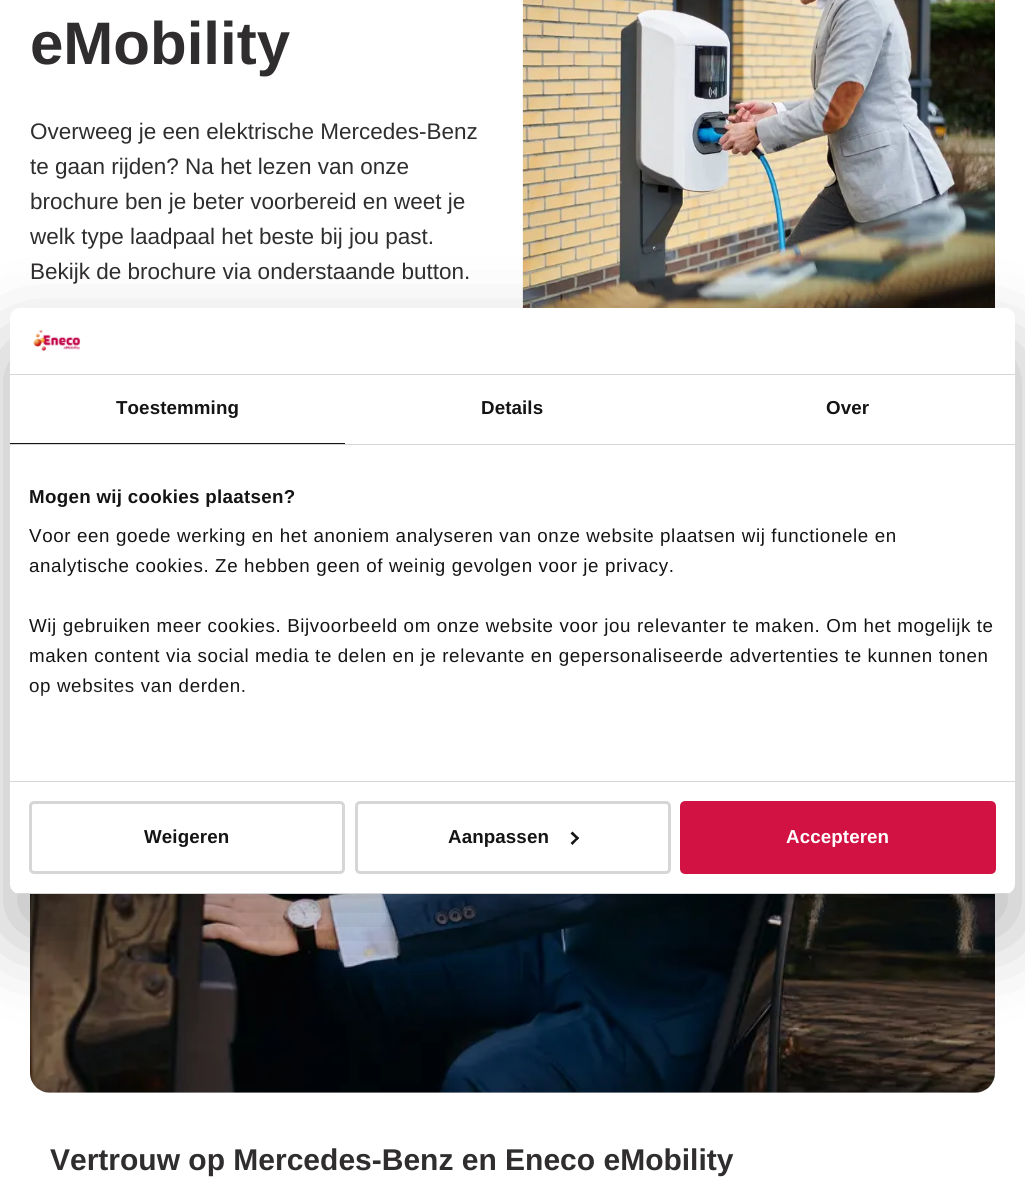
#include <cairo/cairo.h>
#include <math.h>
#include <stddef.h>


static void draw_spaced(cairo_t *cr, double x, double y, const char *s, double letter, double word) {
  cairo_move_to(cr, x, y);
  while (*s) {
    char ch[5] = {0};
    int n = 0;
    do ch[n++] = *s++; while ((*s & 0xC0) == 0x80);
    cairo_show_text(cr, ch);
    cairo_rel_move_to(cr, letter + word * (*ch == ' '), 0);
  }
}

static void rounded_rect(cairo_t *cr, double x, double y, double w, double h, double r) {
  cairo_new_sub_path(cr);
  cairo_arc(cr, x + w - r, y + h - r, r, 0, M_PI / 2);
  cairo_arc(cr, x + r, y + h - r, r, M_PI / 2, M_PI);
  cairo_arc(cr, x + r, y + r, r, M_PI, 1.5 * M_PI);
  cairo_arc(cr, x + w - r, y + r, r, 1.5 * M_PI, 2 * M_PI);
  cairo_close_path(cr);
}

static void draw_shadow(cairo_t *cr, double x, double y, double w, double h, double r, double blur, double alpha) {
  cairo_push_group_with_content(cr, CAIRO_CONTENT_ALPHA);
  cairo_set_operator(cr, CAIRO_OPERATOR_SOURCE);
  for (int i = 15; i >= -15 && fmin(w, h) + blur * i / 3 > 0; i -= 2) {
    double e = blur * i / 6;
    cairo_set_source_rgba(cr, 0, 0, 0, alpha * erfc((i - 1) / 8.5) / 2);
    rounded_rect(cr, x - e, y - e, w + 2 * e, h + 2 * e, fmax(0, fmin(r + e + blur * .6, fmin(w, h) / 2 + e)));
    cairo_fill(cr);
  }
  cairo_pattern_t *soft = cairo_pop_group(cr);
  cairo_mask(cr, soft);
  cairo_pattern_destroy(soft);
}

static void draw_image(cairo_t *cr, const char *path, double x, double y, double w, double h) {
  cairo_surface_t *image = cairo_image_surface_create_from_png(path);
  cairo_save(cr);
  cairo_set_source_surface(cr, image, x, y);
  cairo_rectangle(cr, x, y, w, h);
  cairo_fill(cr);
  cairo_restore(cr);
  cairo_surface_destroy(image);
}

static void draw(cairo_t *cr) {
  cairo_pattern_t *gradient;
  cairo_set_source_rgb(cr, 1, 1, 1);
  cairo_paint(cr);
  draw_image(cr, "images/1.png", 522, 0, 473, 308);
  cairo_set_source_rgb(cr, 243 / 255.0, 240 / 255.0, 240 / 255.0);
  rounded_rect(cr, 30, 504, 965, 589, 20);
  cairo_fill(cr);
  draw_image(cr, "images/2.png", 30, 894, 965, 199);
  cairo_set_source_rgb(cr, 0, 0, 0);
  draw_shadow(cr, 10, 348, 1005, 586, 10, 42.5, 0.3);
  cairo_set_source_rgb(cr, 1, 1, 1);
  rounded_rect(cr, 10, 308, 1005, 586, 10);
  cairo_fill(cr);
  cairo_set_source_rgb(cr, 214 / 255.0, 214 / 255.0, 214 / 255.0);
  cairo_rectangle(cr, 10, 374, 1005, 1);
  cairo_fill(cr);
  draw_image(cr, "images/3.png", 33, 329, 48, 22);
  cairo_rectangle(cr, 10, 444, 1005, 1);
  cairo_fill(cr);
  cairo_set_source_rgb(cr, 20 / 255.0, 20 / 255.0, 20 / 255.0);
  cairo_rectangle(cr, 10, 443, 335, 1);
  cairo_fill(cr);
  cairo_set_source_rgb(cr, 214 / 255.0, 214 / 255.0, 214 / 255.0);
  cairo_rectangle(cr, 10, 781, 1005, 1);
  cairo_fill(cr);
  cairo_save(cr);
  rounded_rect(cr, 10, 308, 1005, 586, 10);
  cairo_clip(cr);
  cairo_rectangle(cr, 10, 893, 1005, 1);
  cairo_fill(cr);
  cairo_restore(cr);
  rounded_rect(cr, 30.5, 802.5, 313, 70, 3.5);
  cairo_set_line_width(cr, 3);
  cairo_stroke(cr);
  rounded_rect(cr, 356.5, 802.5, 313, 70, 3.5);
  cairo_stroke(cr);
  cairo_set_source_rgb(cr, 20 / 255.0, 20 / 255.0, 20 / 255.0);
  cairo_new_path(cr);
  cairo_move_to(cr, 572.5, 831.5);
  cairo_line_to(cr, 579, 838);
  cairo_line_to(cr, 577.5, 840);
  cairo_line_to(cr, 570.5, 833.5);
  cairo_close_path(cr);
  cairo_fill(cr);
  cairo_new_path(cr);
  cairo_move_to(cr, 577.5, 836.5);
  cairo_line_to(cr, 579, 838);
  cairo_line_to(cr, 572.5, 845);
  cairo_line_to(cr, 570.5, 843);
  cairo_close_path(cr);
  cairo_fill(cr);
  cairo_set_source_rgb(cr, 210 / 255.0, 18 / 255.0, 66 / 255.0);
  rounded_rect(cr, 681.5, 802.5, 313, 70, 3.5);
  cairo_fill_preserve(cr);
  cairo_stroke(cr);
  cairo_select_font_face(cr, "Liberation Sans", CAIRO_FONT_SLANT_NORMAL, CAIRO_FONT_WEIGHT_BOLD);
  cairo_set_font_size(cr, 60);
  cairo_set_source_rgb(cr, 47 / 255.0, 45 / 255.0, 45 / 255.0);
  cairo_move_to(cr, 30, 64);
  cairo_show_text(cr, "eMobility");
  cairo_select_font_face(cr, "Liberation Sans", CAIRO_FONT_SLANT_NORMAL, CAIRO_FONT_WEIGHT_NORMAL);
  cairo_set_font_size(cr, 22.5);
  cairo_move_to(cr, 30, 139);
  cairo_show_text(cr, "Overweeg je een elektrische Mercedes-Benz");
  cairo_move_to(cr, 30, 174);
  cairo_show_text(cr, "te gaan rijden? Na het lezen van onze");
  cairo_move_to(cr, 30, 209);
  cairo_show_text(cr, "brochure ben je beter voorbereid en weet je");
  cairo_move_to(cr, 30, 244);
  cairo_show_text(cr, "welk type laadpaal het beste bij jou past.");
  cairo_move_to(cr, 30, 279);
  cairo_show_text(cr, "Bekijk de brochure via onderstaande button.");
  cairo_select_font_face(cr, "Liberation Sans", CAIRO_FONT_SLANT_NORMAL, CAIRO_FONT_WEIGHT_BOLD);
  cairo_set_font_size(cr, 30);
  cairo_move_to(cr, 50, 1170);
  cairo_show_text(cr, "Vertrouw op Mercedes-Benz en Eneco eMobility");
  cairo_set_font_size(cr, 18.75);
  cairo_set_source_rgb(cr, 20 / 255.0, 20 / 255.0, 20 / 255.0);
  draw_spaced(cr, 116, 414, "Toestemming", 0.1, 0);
  draw_spaced(cr, 481, 414, "Details", 0.1, 0);
  draw_spaced(cr, 826, 414, "Over", 0.1, 0);
  draw_spaced(cr, 29, 503, "Mogen wij cookies plaatsen?", 0.3, 0);
  cairo_select_font_face(cr, "Liberation Sans", CAIRO_FONT_SLANT_NORMAL, CAIRO_FONT_WEIGHT_NORMAL);
  draw_spaced(cr, 29, 542, "Voor een goede werking en het anoniem analyseren van onze website plaatsen wij functionele en", 0.62, 0);
  draw_spaced(cr, 29, 572, "analytische cookies. Ze hebben geen of weinig gevolgen voor je privacy.", 0.62, 0);
  draw_spaced(cr, 29, 632, "Wij gebruiken meer cookies. Bijvoorbeeld om onze website voor jou relevanter te maken. Om het mogelijk te", 0.62, 0);
  draw_spaced(cr, 29, 662, "maken content via social media te delen en je relevante en gepersonaliseerde advertenties te kunnen tonen", 0.62, 0);
  draw_spaced(cr, 29, 692, "op websites van derden.", 0.62, 0);
  gradient = cairo_pattern_create_linear(504, 781, 504, 687);
  cairo_pattern_add_color_stop_rgba(gradient, 0, 1, 1, 1, 1);
  cairo_pattern_add_color_stop_rgba(gradient, 0.5, 1, 1, 1, 0.8);
  cairo_pattern_add_color_stop_rgba(gradient, 1, 1, 1, 1, 0);
  cairo_set_source(cr, gradient);
  cairo_pattern_destroy(gradient);
  cairo_rectangle(cr, 30, 688, 214, 8);
  cairo_fill(cr);
  cairo_select_font_face(cr, "Liberation Sans", CAIRO_FONT_SLANT_NORMAL, CAIRO_FONT_WEIGHT_BOLD);
  cairo_set_source_rgb(cr, 20 / 255.0, 20 / 255.0, 20 / 255.0);
  draw_spaced(cr, 144, 843, "Weigeren", 0.1, 0);
  draw_spaced(cr, 448, 843, "Aanpassen", 0.1, 0);
  cairo_set_source_rgb(cr, 1, 1, 1);
  draw_spaced(cr, 786, 843, "Accepteren", 0.1, 0);
}

int main(void) {
  cairo_surface_t *surface = cairo_image_surface_create(CAIRO_FORMAT_RGB24, 1025, 1199);
  cairo_t *cr = cairo_create(surface);
  cairo_font_options_t *options = cairo_font_options_create();
  cairo_font_options_set_hint_metrics(options, CAIRO_HINT_METRICS_OFF);
  cairo_font_options_set_hint_style(options, CAIRO_HINT_STYLE_NONE);
  cairo_set_font_options(cr, options);
  cairo_set_miter_limit(cr, 4);
  draw(cr);
  cairo_surface_write_to_png(surface, "out.png");
  cairo_font_options_destroy(options);
  cairo_destroy(cr);
  cairo_surface_destroy(surface);
  return 0;
}
